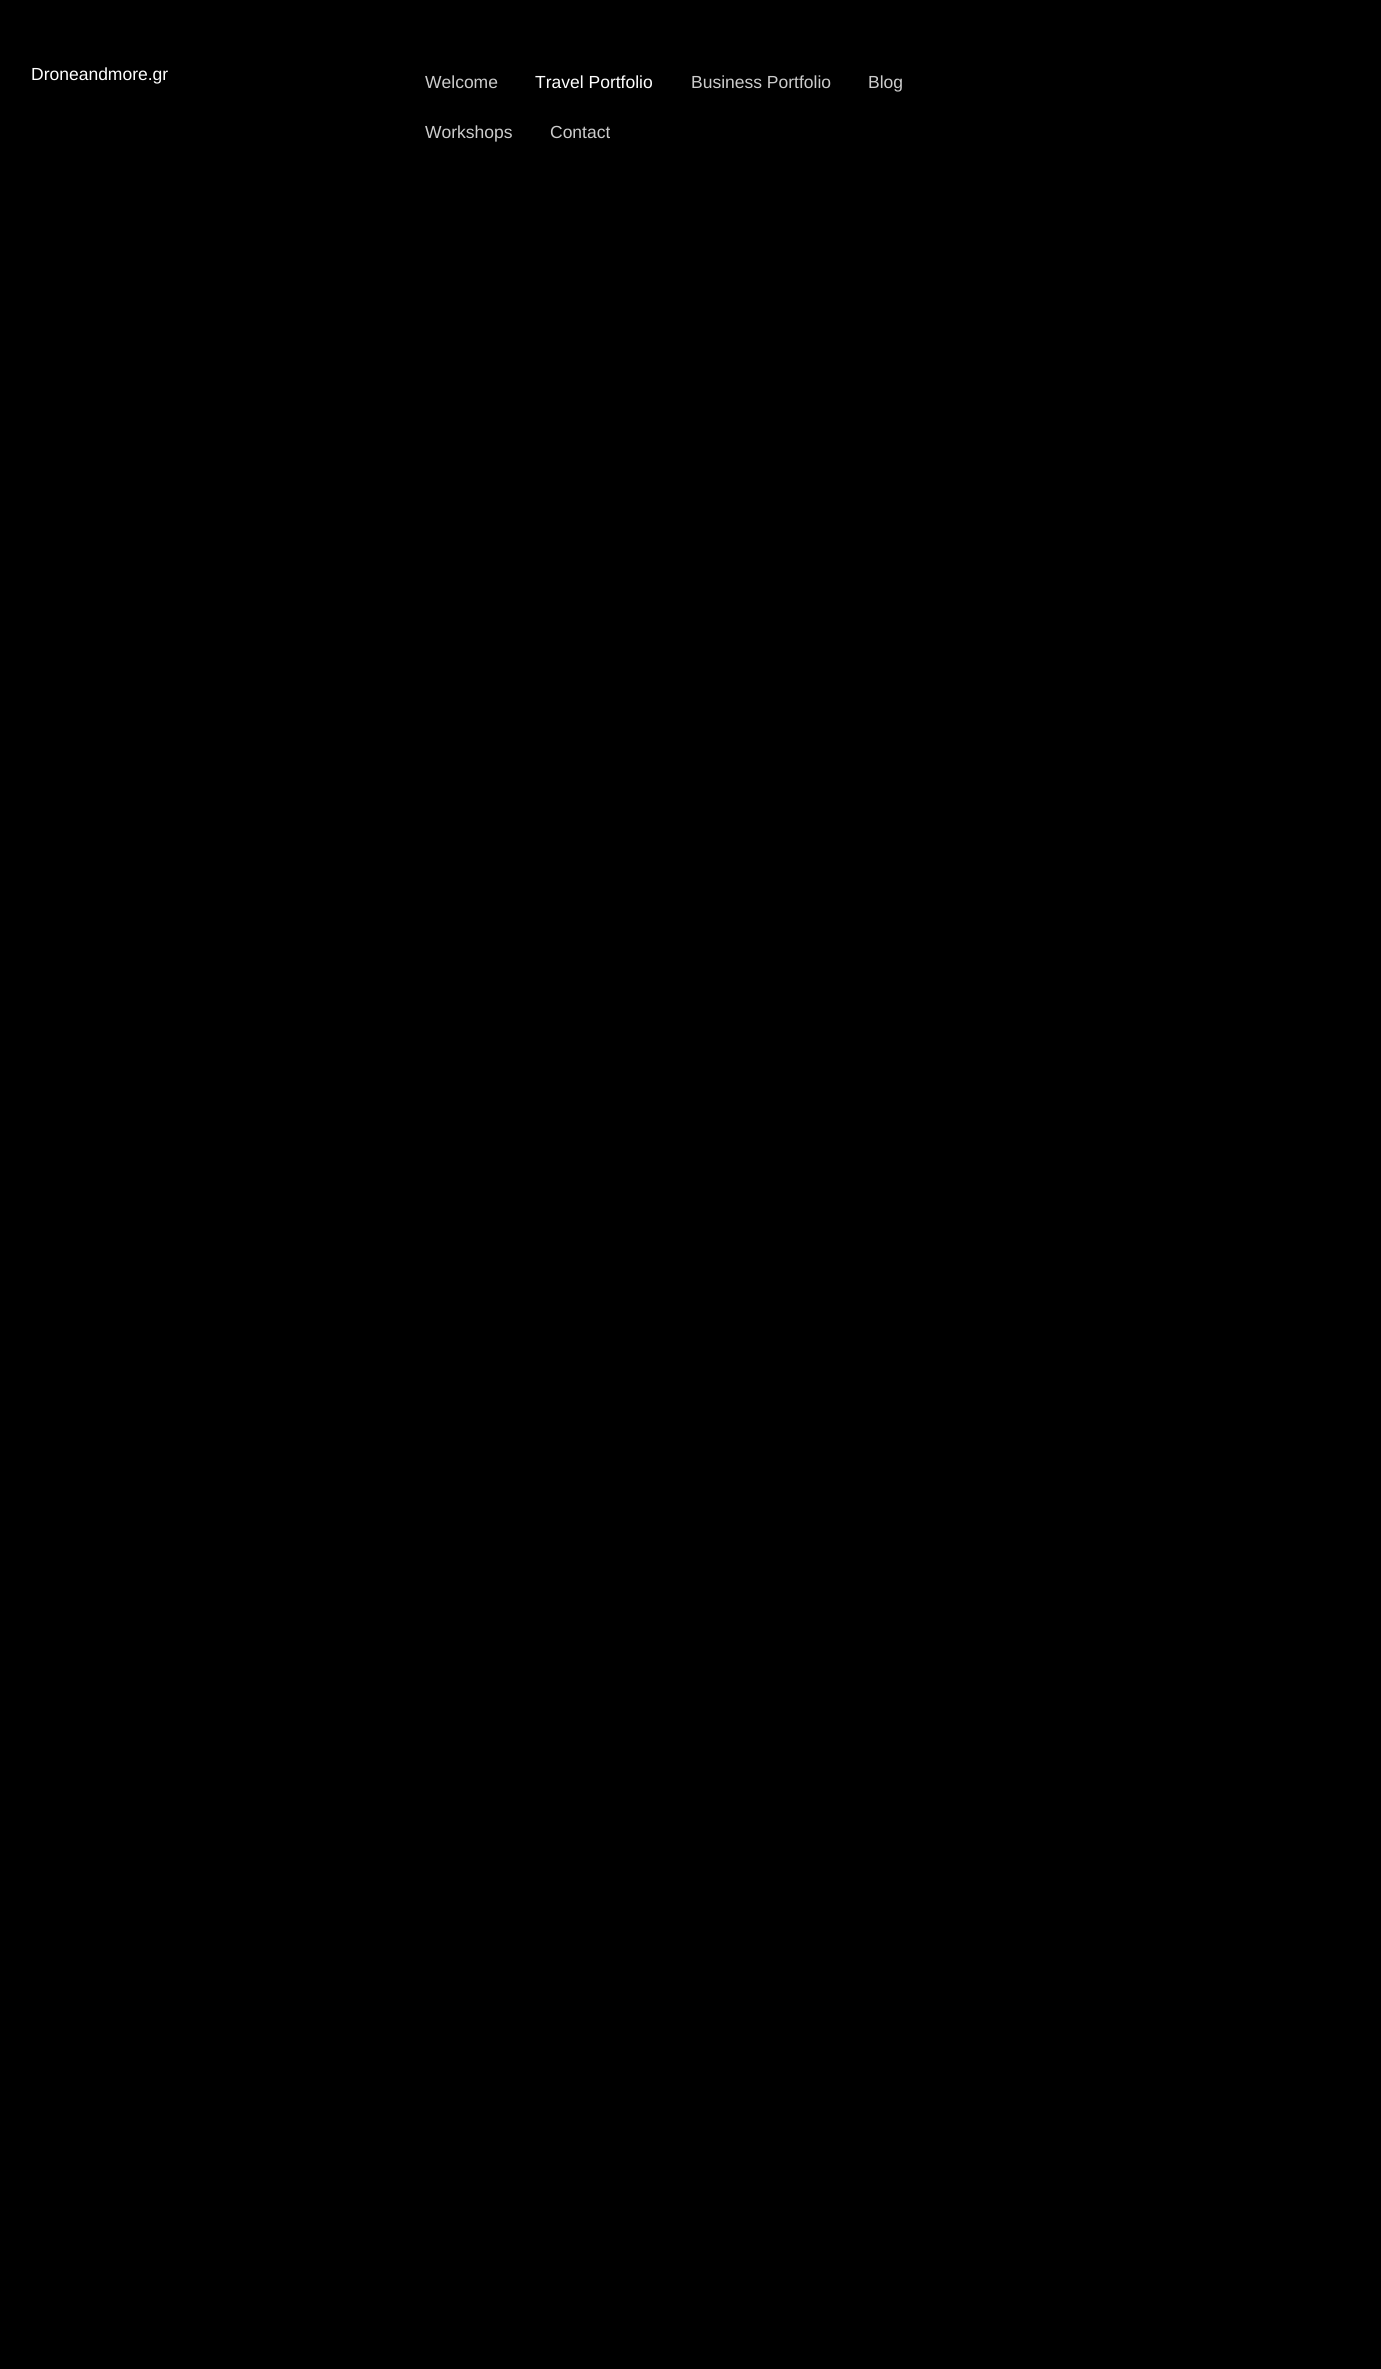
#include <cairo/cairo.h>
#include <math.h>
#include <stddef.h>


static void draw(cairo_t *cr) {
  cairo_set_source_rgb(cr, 0, 0, 0);
  cairo_paint(cr);
  cairo_select_font_face(cr, "Liberation Sans", CAIRO_FONT_SLANT_NORMAL, CAIRO_FONT_WEIGHT_NORMAL);
  cairo_set_font_size(cr, 17.5);
  cairo_set_source_rgb(cr, 1, 1, 1);
  cairo_move_to(cr, 31, 80);
  cairo_show_text(cr, "Droneandmore.gr");
  cairo_set_source_rgb(cr, 204 / 255.0, 204 / 255.0, 204 / 255.0);
  cairo_move_to(cr, 425, 88);
  cairo_show_text(cr, "Welcome");
  cairo_set_source_rgb(cr, 1, 1, 1);
  cairo_move_to(cr, 535, 88);
  cairo_show_text(cr, "Travel Portfolio");
  cairo_set_source_rgb(cr, 204 / 255.0, 204 / 255.0, 204 / 255.0);
  cairo_move_to(cr, 691, 88);
  cairo_show_text(cr, "Business Portfolio");
  cairo_move_to(cr, 868, 88);
  cairo_show_text(cr, "Blog");
  cairo_move_to(cr, 425, 138);
  cairo_show_text(cr, "Workshops");
  cairo_move_to(cr, 550, 138);
  cairo_show_text(cr, "Contact");
}

int main(void) {
  cairo_surface_t *surface = cairo_image_surface_create(CAIRO_FORMAT_RGB24, 1381, 2369);
  cairo_t *cr = cairo_create(surface);
  cairo_font_options_t *options = cairo_font_options_create();
  cairo_font_options_set_hint_metrics(options, CAIRO_HINT_METRICS_OFF);
  cairo_font_options_set_hint_style(options, CAIRO_HINT_STYLE_NONE);
  cairo_set_font_options(cr, options);
  cairo_set_miter_limit(cr, 4);
  draw(cr);
  cairo_surface_write_to_png(surface, "out.png");
  cairo_font_options_destroy(options);
  cairo_destroy(cr);
  cairo_surface_destroy(surface);
  return 0;
}
